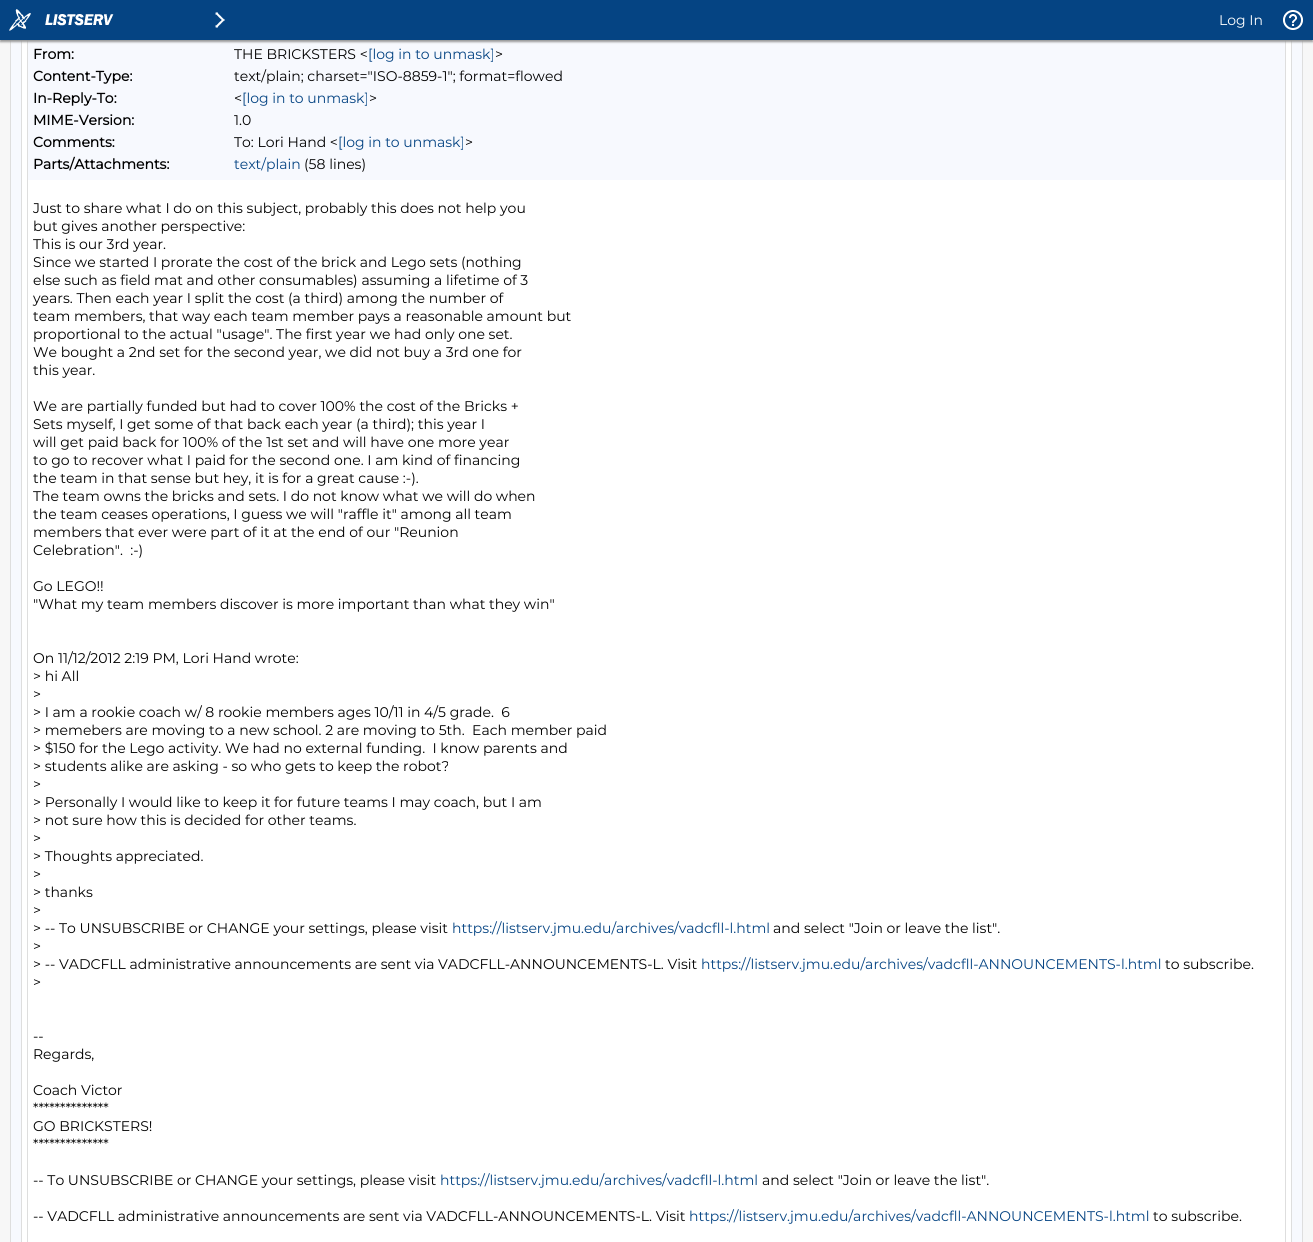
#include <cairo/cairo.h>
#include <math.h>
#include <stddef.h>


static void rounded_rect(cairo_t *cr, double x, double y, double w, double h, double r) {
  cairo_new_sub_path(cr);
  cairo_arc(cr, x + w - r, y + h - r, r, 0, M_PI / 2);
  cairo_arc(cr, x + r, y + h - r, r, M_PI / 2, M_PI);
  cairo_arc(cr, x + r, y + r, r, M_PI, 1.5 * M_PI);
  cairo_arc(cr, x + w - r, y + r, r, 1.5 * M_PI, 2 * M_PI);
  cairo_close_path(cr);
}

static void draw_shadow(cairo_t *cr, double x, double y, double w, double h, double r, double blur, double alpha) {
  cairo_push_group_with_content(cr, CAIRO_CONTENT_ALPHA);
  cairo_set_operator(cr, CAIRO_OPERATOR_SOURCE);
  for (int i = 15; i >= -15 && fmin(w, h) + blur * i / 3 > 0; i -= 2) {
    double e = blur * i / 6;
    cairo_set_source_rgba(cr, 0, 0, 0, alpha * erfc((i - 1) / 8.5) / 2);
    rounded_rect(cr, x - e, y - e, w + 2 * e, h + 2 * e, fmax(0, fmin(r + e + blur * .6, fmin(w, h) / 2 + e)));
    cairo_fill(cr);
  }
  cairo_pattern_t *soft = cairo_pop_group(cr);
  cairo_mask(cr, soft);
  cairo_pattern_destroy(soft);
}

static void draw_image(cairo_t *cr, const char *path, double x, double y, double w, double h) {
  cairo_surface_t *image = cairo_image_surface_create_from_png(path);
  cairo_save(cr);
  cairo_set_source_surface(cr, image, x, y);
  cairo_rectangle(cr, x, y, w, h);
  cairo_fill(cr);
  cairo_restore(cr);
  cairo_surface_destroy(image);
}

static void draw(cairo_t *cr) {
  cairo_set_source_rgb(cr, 247 / 255.0, 247 / 255.0, 247 / 255.0);
  cairo_paint(cr);
  cairo_set_source_rgb(cr, 247 / 255.0, 249 / 255.0, 254 / 255.0);
  cairo_rectangle(cr, 11, 40, 1291, 1202);
  cairo_fill(cr);
  cairo_rectangle(cr, 10.5, -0.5, 1292, 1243);
  cairo_set_source_rgb(cr, 222 / 255.0, 222 / 255.0, 222 / 255.0);
  cairo_set_line_width(cr, 1);
  cairo_stroke(cr);
  cairo_rectangle(cr, 21.5, -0.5, 1270, 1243);
  cairo_stroke(cr);
  cairo_set_source_rgb(cr, 1, 1, 1);
  cairo_rectangle(cr, 22, 40, 1269, 1202);
  cairo_fill(cr);
  cairo_rectangle(cr, 27.5, -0.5, 1258, 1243);
  cairo_set_source_rgb(cr, 222 / 255.0, 222 / 255.0, 222 / 255.0);
  cairo_stroke(cr);
  cairo_set_source_rgb(cr, 247 / 255.0, 249 / 255.0, 254 / 255.0);
  cairo_rectangle(cr, 28, 40, 1257, 140);
  cairo_fill(cr);
  cairo_set_source_rgb(cr, 153 / 255.0, 153 / 255.0, 153 / 255.0);
  draw_shadow(cr, 0, 2, 1313, 40, 0, 1, 1);
  cairo_set_source_rgb(cr, 5 / 255.0, 68 / 255.0, 131 / 255.0);
  cairo_rectangle(cr, 0, 0, 1313, 40);
  cairo_fill(cr);
  draw_image(cr, "images/1.png", 9, 9, 22, 22);
  draw_image(cr, "images/2.png", 45, 14, 69, 12);
  draw_image(cr, "images/3.png", 215, 12, 10, 16);
  draw_image(cr, "images/4.png", 1283, 10, 20, 20);
  cairo_select_font_face(cr, "Montserrat Thin", CAIRO_FONT_SLANT_NORMAL, CAIRO_FONT_WEIGHT_NORMAL);
  cairo_set_font_size(cr, 14);
  cairo_set_source_rgb(cr, 1, 1, 1);
  cairo_move_to(cr, 1219, 25);
  cairo_show_text(cr, "Log In");
  cairo_select_font_face(cr, "Montserrat", CAIRO_FONT_SLANT_NORMAL, CAIRO_FONT_WEIGHT_BOLD);
  cairo_set_source_rgb(cr, 0, 0, 0);
  cairo_move_to(cr, 33, 59);
  cairo_show_text(cr, "From:");
  cairo_select_font_face(cr, "Montserrat Thin", CAIRO_FONT_SLANT_NORMAL, CAIRO_FONT_WEIGHT_NORMAL);
  cairo_move_to(cr, 234, 59);
  cairo_show_text(cr, "THE BRICKSTERS <");
  cairo_set_source_rgb(cr, 5 / 255.0, 68 / 255.0, 131 / 255.0);
  cairo_move_to(cr, 368, 59);
  cairo_show_text(cr, "[log in to unmask]");
  cairo_set_source_rgb(cr, 0, 0, 0);
  cairo_move_to(cr, 495, 59);
  cairo_show_text(cr, ">");
  cairo_select_font_face(cr, "Montserrat", CAIRO_FONT_SLANT_NORMAL, CAIRO_FONT_WEIGHT_BOLD);
  cairo_move_to(cr, 33, 81);
  cairo_show_text(cr, "Content-Type:");
  cairo_select_font_face(cr, "Montserrat Thin", CAIRO_FONT_SLANT_NORMAL, CAIRO_FONT_WEIGHT_NORMAL);
  cairo_move_to(cr, 234, 81);
  cairo_show_text(cr, "text/plain; charset=\"ISO-8859-1\"; format=flowed");
  cairo_select_font_face(cr, "Montserrat", CAIRO_FONT_SLANT_NORMAL, CAIRO_FONT_WEIGHT_BOLD);
  cairo_move_to(cr, 33, 103);
  cairo_show_text(cr, "In-Reply-To:");
  cairo_select_font_face(cr, "Montserrat Thin", CAIRO_FONT_SLANT_NORMAL, CAIRO_FONT_WEIGHT_NORMAL);
  cairo_move_to(cr, 234, 103);
  cairo_show_text(cr, "<");
  cairo_set_source_rgb(cr, 5 / 255.0, 68 / 255.0, 131 / 255.0);
  cairo_move_to(cr, 242, 103);
  cairo_show_text(cr, "[log in to unmask]");
  cairo_set_source_rgb(cr, 0, 0, 0);
  cairo_move_to(cr, 369, 103);
  cairo_show_text(cr, ">");
  cairo_select_font_face(cr, "Montserrat", CAIRO_FONT_SLANT_NORMAL, CAIRO_FONT_WEIGHT_BOLD);
  cairo_move_to(cr, 33, 125);
  cairo_show_text(cr, "MIME-Version:");
  cairo_select_font_face(cr, "Montserrat Thin", CAIRO_FONT_SLANT_NORMAL, CAIRO_FONT_WEIGHT_NORMAL);
  cairo_move_to(cr, 234, 125);
  cairo_show_text(cr, "1.0");
  cairo_select_font_face(cr, "Montserrat", CAIRO_FONT_SLANT_NORMAL, CAIRO_FONT_WEIGHT_BOLD);
  cairo_move_to(cr, 33, 147);
  cairo_show_text(cr, "Comments:");
  cairo_select_font_face(cr, "Montserrat Thin", CAIRO_FONT_SLANT_NORMAL, CAIRO_FONT_WEIGHT_NORMAL);
  cairo_move_to(cr, 234, 147);
  cairo_show_text(cr, "To: Lori Hand <");
  cairo_set_source_rgb(cr, 5 / 255.0, 68 / 255.0, 131 / 255.0);
  cairo_move_to(cr, 338, 147);
  cairo_show_text(cr, "[log in to unmask]");
  cairo_set_source_rgb(cr, 0, 0, 0);
  cairo_move_to(cr, 465, 147);
  cairo_show_text(cr, ">");
  cairo_select_font_face(cr, "Montserrat", CAIRO_FONT_SLANT_NORMAL, CAIRO_FONT_WEIGHT_BOLD);
  cairo_move_to(cr, 33, 169);
  cairo_show_text(cr, "Parts/Attachments:");
  cairo_select_font_face(cr, "Montserrat Thin", CAIRO_FONT_SLANT_NORMAL, CAIRO_FONT_WEIGHT_NORMAL);
  cairo_set_source_rgb(cr, 5 / 255.0, 68 / 255.0, 131 / 255.0);
  cairo_move_to(cr, 234, 169);
  cairo_show_text(cr, "text/plain");
  cairo_set_source_rgb(cr, 0, 0, 0);
  cairo_move_to(cr, 304, 169);
  cairo_show_text(cr, "(58 lines)");
  cairo_move_to(cr, 33, 213);
  cairo_show_text(cr, "Just to share what I do on this subject, probably this does not help you");
  cairo_move_to(cr, 33, 231);
  cairo_show_text(cr, "but gives another perspective:");
  cairo_move_to(cr, 33, 249);
  cairo_show_text(cr, "This is our 3rd year.");
  cairo_move_to(cr, 33, 267);
  cairo_show_text(cr, "Since we started I prorate the cost of the brick and Lego sets (nothing");
  cairo_move_to(cr, 33, 285);
  cairo_show_text(cr, "else such as field mat and other consumables) assuming a lifetime of 3");
  cairo_move_to(cr, 33, 303);
  cairo_show_text(cr, "years. Then each year I split the cost (a third) among the number of");
  cairo_move_to(cr, 33, 321);
  cairo_show_text(cr, "team members, that way each team member pays a reasonable amount but");
  cairo_move_to(cr, 33, 339);
  cairo_show_text(cr, "proportional to the actual \"usage\". The first year we had only one set.");
  cairo_move_to(cr, 33, 357);
  cairo_show_text(cr, "We bought a 2nd set for the second year, we did not buy a 3rd one for");
  cairo_move_to(cr, 33, 375);
  cairo_show_text(cr, "this year.");
  cairo_move_to(cr, 33, 411);
  cairo_show_text(cr, "We are partially funded but had to cover 100% the cost of the Bricks +");
  cairo_move_to(cr, 33, 429);
  cairo_show_text(cr, "Sets myself, I get some of that back each year (a third); this year I");
  cairo_move_to(cr, 33, 447);
  cairo_show_text(cr, "will get paid back for 100% of the 1st set and will have one more year");
  cairo_move_to(cr, 33, 465);
  cairo_show_text(cr, "to go to recover what I paid for the second one. I am kind of financing");
  cairo_move_to(cr, 33, 483);
  cairo_show_text(cr, "the team in that sense but hey, it is for a great cause :-).");
  cairo_move_to(cr, 33, 501);
  cairo_show_text(cr, "The team owns the bricks and sets. I do not know what we will do when");
  cairo_move_to(cr, 33, 519);
  cairo_show_text(cr, "the team ceases operations, I guess we will \"raffle it\" among all team");
  cairo_move_to(cr, 33, 537);
  cairo_show_text(cr, "members that ever were part of it at the end of our \"Reunion");
  cairo_move_to(cr, 33, 555);
  cairo_show_text(cr, "Celebration\".  :-)");
  cairo_move_to(cr, 33, 591);
  cairo_show_text(cr, "Go LEGO!!");
  cairo_move_to(cr, 33, 609);
  cairo_show_text(cr, "\"What my team members discover is more important than what they win\"");
  cairo_move_to(cr, 33, 663);
  cairo_show_text(cr, "On 11/12/2012 2:19 PM, Lori Hand wrote:");
  cairo_move_to(cr, 33, 681);
  cairo_show_text(cr, "> hi All");
  cairo_move_to(cr, 33, 699);
  cairo_show_text(cr, ">");
  cairo_move_to(cr, 33, 717);
  cairo_show_text(cr, "> I am a rookie coach w/ 8 rookie members ages 10/11 in 4/5 grade.  6");
  cairo_move_to(cr, 33, 735);
  cairo_show_text(cr, "> memebers are moving to a new school. 2 are moving to 5th.  Each member paid");
  cairo_move_to(cr, 33, 753);
  cairo_show_text(cr, "> $150 for the Lego activity. We had no external funding.  I know parents and");
  cairo_move_to(cr, 33, 771);
  cairo_show_text(cr, "> students alike are asking - so who gets to keep the robot?");
  cairo_move_to(cr, 33, 789);
  cairo_show_text(cr, ">");
  cairo_move_to(cr, 33, 807);
  cairo_show_text(cr, "> Personally I would like to keep it for future teams I may coach, but I am");
  cairo_move_to(cr, 33, 825);
  cairo_show_text(cr, "> not sure how this is decided for other teams.");
  cairo_move_to(cr, 33, 843);
  cairo_show_text(cr, ">");
  cairo_move_to(cr, 33, 861);
  cairo_show_text(cr, "> Thoughts appreciated.");
  cairo_move_to(cr, 33, 879);
  cairo_show_text(cr, ">");
  cairo_move_to(cr, 33, 897);
  cairo_show_text(cr, "> thanks");
  cairo_move_to(cr, 33, 915);
  cairo_show_text(cr, ">");
  cairo_move_to(cr, 33, 933);
  cairo_show_text(cr, "> -- To UNSUBSCRIBE or CHANGE your settings, please visit");
  cairo_set_source_rgb(cr, 5 / 255.0, 68 / 255.0, 131 / 255.0);
  cairo_move_to(cr, 452, 933);
  cairo_show_text(cr, "https://listserv.jmu.edu/archives/vadcfll-l.html");
  cairo_set_source_rgb(cr, 0, 0, 0);
  cairo_move_to(cr, 773, 933);
  cairo_show_text(cr, "and select \"Join or leave the list\".");
  cairo_move_to(cr, 33, 951);
  cairo_show_text(cr, ">");
  cairo_move_to(cr, 33, 969);
  cairo_show_text(cr, "> -- VADCFLL administrative announcements are sent via VADCFLL-ANNOUNCEMENTS-L. Visit");
  cairo_set_source_rgb(cr, 5 / 255.0, 68 / 255.0, 131 / 255.0);
  cairo_move_to(cr, 701, 969);
  cairo_show_text(cr, "https://listserv.jmu.edu/archives/vadcfll-ANNOUNCEMENTS-l.html");
  cairo_set_source_rgb(cr, 0, 0, 0);
  cairo_move_to(cr, 1165, 969);
  cairo_show_text(cr, "to subscribe.");
  cairo_move_to(cr, 33, 987);
  cairo_show_text(cr, ">");
  cairo_move_to(cr, 33, 1041);
  cairo_show_text(cr, "--");
  cairo_move_to(cr, 33, 1059);
  cairo_show_text(cr, "Regards,");
  cairo_move_to(cr, 33, 1095);
  cairo_show_text(cr, "Coach Victor");
  cairo_move_to(cr, 33, 1113);
  cairo_show_text(cr, "**************");
  cairo_move_to(cr, 33, 1131);
  cairo_show_text(cr, "GO BRICKSTERS!");
  cairo_move_to(cr, 33, 1149);
  cairo_show_text(cr, "**************");
  cairo_move_to(cr, 33, 1185);
  cairo_show_text(cr, "-- To UNSUBSCRIBE or CHANGE your settings, please visit");
  cairo_set_source_rgb(cr, 5 / 255.0, 68 / 255.0, 131 / 255.0);
  cairo_move_to(cr, 440, 1185);
  cairo_show_text(cr, "https://listserv.jmu.edu/archives/vadcfll-l.html");
  cairo_set_source_rgb(cr, 0, 0, 0);
  cairo_move_to(cr, 762, 1185);
  cairo_show_text(cr, "and select \"Join or leave the list\".");
  cairo_move_to(cr, 33, 1221);
  cairo_show_text(cr, "-- VADCFLL administrative announcements are sent via VADCFLL-ANNOUNCEMENTS-L. Visit");
  cairo_set_source_rgb(cr, 5 / 255.0, 68 / 255.0, 131 / 255.0);
  cairo_move_to(cr, 689, 1221);
  cairo_show_text(cr, "https://listserv.jmu.edu/archives/vadcfll-ANNOUNCEMENTS-l.html");
  cairo_set_source_rgb(cr, 0, 0, 0);
  cairo_move_to(cr, 1153, 1221);
  cairo_show_text(cr, "to subscribe.");
}

int main(void) {
  cairo_surface_t *surface = cairo_image_surface_create(CAIRO_FORMAT_RGB24, 1313, 1242);
  cairo_t *cr = cairo_create(surface);
  cairo_font_options_t *options = cairo_font_options_create();
  cairo_font_options_set_hint_metrics(options, CAIRO_HINT_METRICS_OFF);
  cairo_font_options_set_hint_style(options, CAIRO_HINT_STYLE_NONE);
  cairo_set_font_options(cr, options);
  cairo_set_miter_limit(cr, 4);
  draw(cr);
  cairo_surface_write_to_png(surface, "out.png");
  cairo_font_options_destroy(options);
  cairo_destroy(cr);
  cairo_surface_destroy(surface);
  return 0;
}
